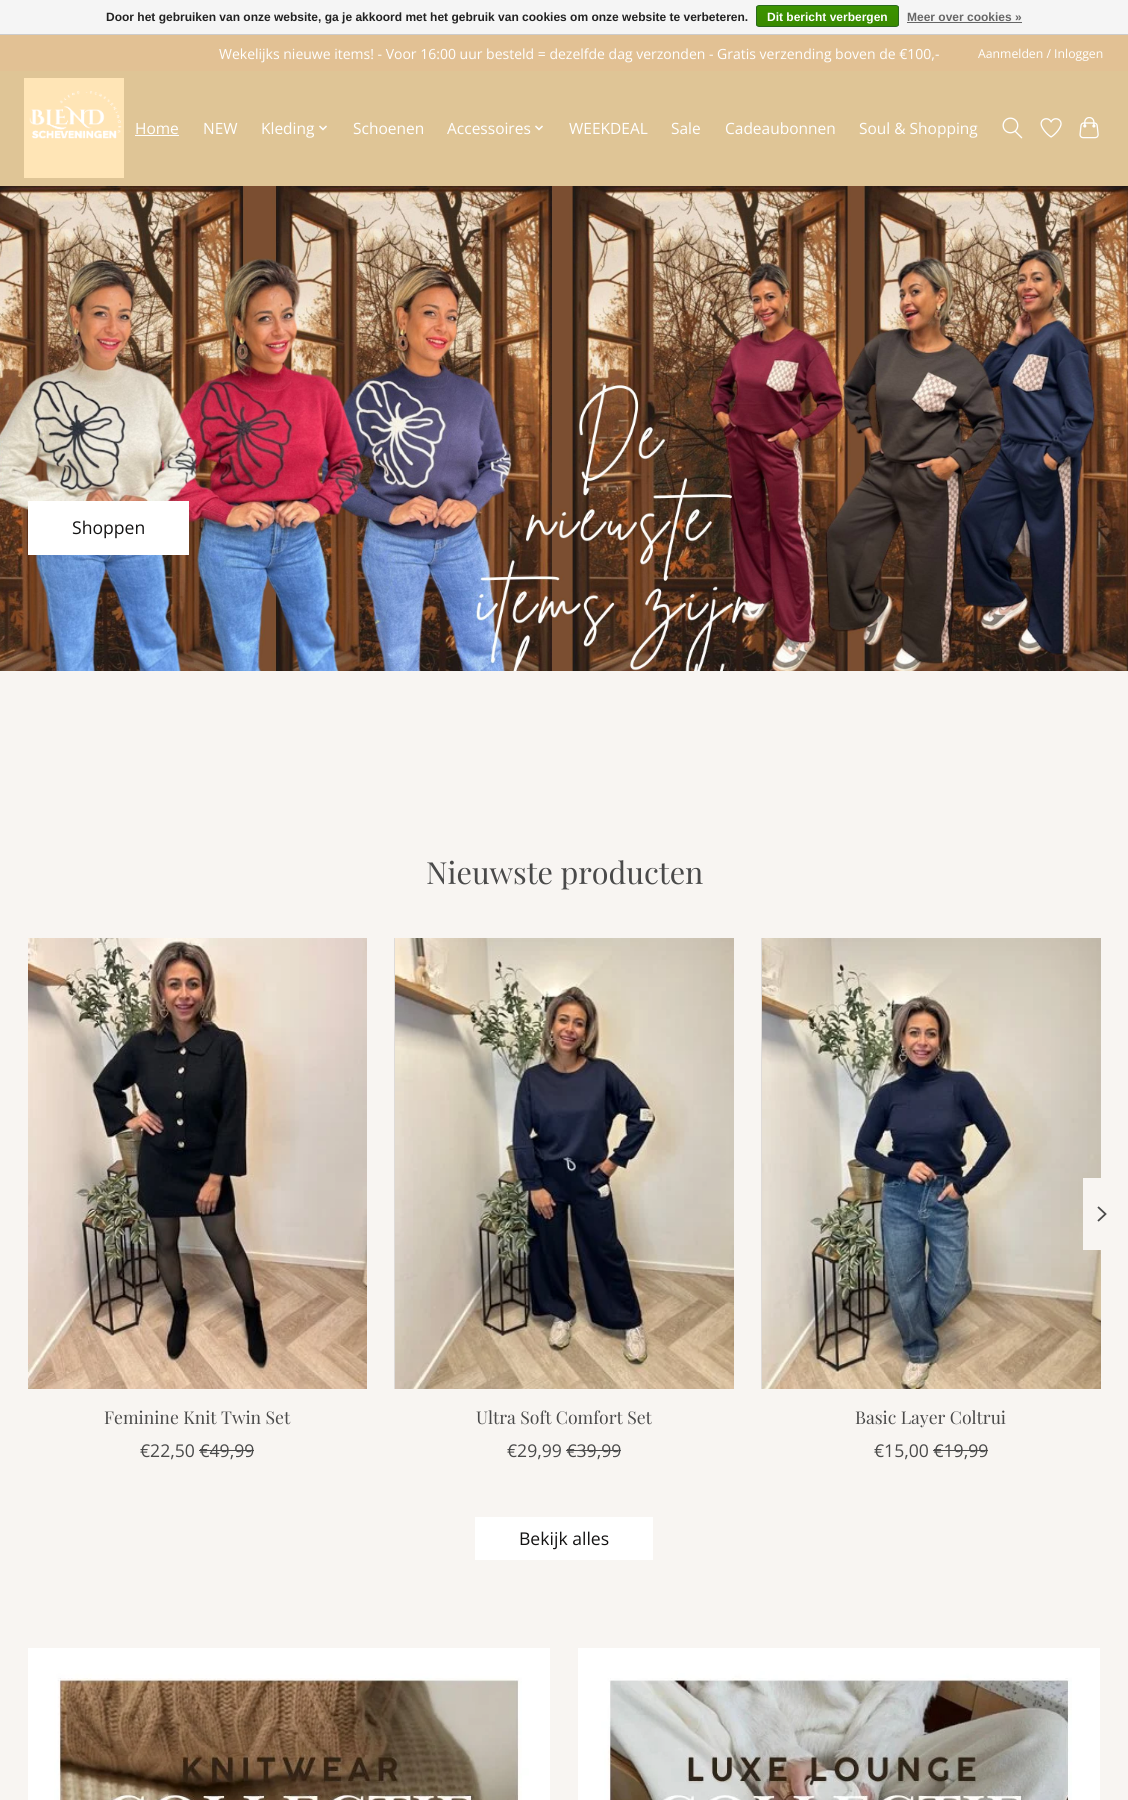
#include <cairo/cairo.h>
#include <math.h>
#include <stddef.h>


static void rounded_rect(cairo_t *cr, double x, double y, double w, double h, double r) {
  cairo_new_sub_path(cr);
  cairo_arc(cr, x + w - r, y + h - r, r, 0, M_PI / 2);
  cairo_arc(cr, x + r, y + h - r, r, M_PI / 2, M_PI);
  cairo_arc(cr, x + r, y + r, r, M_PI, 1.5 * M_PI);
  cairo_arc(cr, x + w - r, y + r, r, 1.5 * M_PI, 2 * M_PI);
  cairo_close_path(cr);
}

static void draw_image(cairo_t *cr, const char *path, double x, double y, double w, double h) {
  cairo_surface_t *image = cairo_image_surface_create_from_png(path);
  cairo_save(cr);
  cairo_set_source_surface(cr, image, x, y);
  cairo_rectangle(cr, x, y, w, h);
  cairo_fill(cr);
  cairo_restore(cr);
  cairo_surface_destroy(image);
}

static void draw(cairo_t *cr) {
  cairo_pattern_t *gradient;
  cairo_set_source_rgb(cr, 248 / 255.0, 245 / 255.0, 242 / 255.0);
  cairo_paint(cr);
  cairo_set_source_rgb(cr, 245 / 255.0, 245 / 255.0, 245 / 255.0);
  cairo_rectangle(cr, 0, 0, 1128, 34);
  cairo_fill(cr);
  cairo_set_source_rgb(cr, 204 / 255.0, 204 / 255.0, 204 / 255.0);
  cairo_rectangle(cr, 0, 34, 1128, 1);
  cairo_fill(cr);
  cairo_save(cr);
  rounded_rect(cr, 756, 5, 143, 22, 3);
  cairo_clip(cr);
  gradient = cairo_pattern_create_linear(828, 6, 828, 26);
  cairo_pattern_add_color_stop_rgba(gradient, 0, 60 / 255.0, 147 / 255.0, 0, 1);
  cairo_pattern_add_color_stop_rgba(gradient, 1, 57 / 255.0, 138 / 255.0, 0, 1);
  cairo_set_source(cr, gradient);
  cairo_pattern_destroy(gradient);
  cairo_rectangle(cr, 756, 6, 143, 20);
  cairo_fill(cr);
  cairo_restore(cr);
  rounded_rect(cr, 756.5, 5.5, 142, 21, 2.5);
  cairo_set_source_rgb(cr, 41 / 255.0, 105 / 255.0, 29 / 255.0);
  cairo_set_line_width(cr, 1);
  cairo_stroke(cr);
  cairo_set_source_rgb(cr, 102 / 255.0, 102 / 255.0, 102 / 255.0);
  cairo_rectangle(cr, 907, 22, 115, 1);
  cairo_fill(cr);
  cairo_set_source_rgb(cr, 226 / 255.0, 193 / 255.0, 148 / 255.0);
  cairo_rectangle(cr, 0, 35, 1128, 36);
  cairo_fill(cr);
  cairo_set_source_rgb(cr, 223 / 255.0, 197 / 255.0, 150 / 255.0);
  cairo_rectangle(cr, 0, 71, 1128, 115);
  cairo_fill(cr);
  draw_image(cr, "images/1.png", 24, 78, 100, 100);
  cairo_set_source_rgb(cr, 1, 1, 1);
  cairo_rectangle(cr, 135, 135, 44, 1);
  cairo_fill(cr);
  draw_image(cr, "images/2.png", 319, 125, 8, 6);
  draw_image(cr, "images/2.png", 535, 125, 8, 6);
  draw_image(cr, "images/3.png", 1002, 117, 21, 22);
  draw_image(cr, "images/4.png", 1040, 118, 22, 20);
  draw_image(cr, "images/5.png", 1079, 117, 20, 22);
  draw_image(cr, "images/6.png", 0, 186, 1128, 485);
  cairo_rectangle(cr, 28, 501, 161, 54);
  cairo_fill(cr);
  draw_image(cr, "images/9.png", 762, 938, 339, 451);
  cairo_set_source_rgb(cr, 248 / 255.0, 245 / 255.0, 242 / 255.0);
  cairo_rectangle(cr, 1083, 1178, 18, 72);
  cairo_fill(cr);
  cairo_new_path(cr);
  cairo_move_to(cr, 1098, 1221);
  cairo_line_to(cr, 1105.5, 1214);
  cairo_line_to(cr, 1098, 1207);
  cairo_set_source_rgb(cr, 74 / 255.0, 74 / 255.0, 74 / 255.0);
  cairo_set_line_width(cr, 1.8);
  cairo_stroke(cr);
  draw_image(cr, "images/7.png", 28, 938, 339, 451);
  cairo_rectangle(cr, 199, 1450, 55, 1);
  cairo_fill(cr);
  cairo_set_source_rgb(cr, 222 / 255.0, 219 / 255.0, 217 / 255.0);
  cairo_rectangle(cr, 394, 938, 1, 451);
  cairo_fill(cr);
  draw_image(cr, "images/8.png", 395, 938, 339, 451);
  cairo_set_source_rgb(cr, 74 / 255.0, 74 / 255.0, 74 / 255.0);
  cairo_rectangle(cr, 566, 1450, 55, 1);
  cairo_fill(cr);
  cairo_set_source_rgb(cr, 222 / 255.0, 219 / 255.0, 217 / 255.0);
  cairo_rectangle(cr, 761, 938, 1, 451);
  cairo_fill(cr);
  cairo_set_source_rgb(cr, 74 / 255.0, 74 / 255.0, 74 / 255.0);
  cairo_rectangle(cr, 933, 1450, 55, 1);
  cairo_fill(cr);
  cairo_set_source_rgb(cr, 1, 1, 1);
  cairo_rectangle(cr, 475, 1517, 178, 43);
  cairo_fill(cr);
  draw_image(cr, "images/10.png", 28, 1648, 522, 152);
  draw_image(cr, "images/11.png", 578, 1648, 522, 152);
  cairo_select_font_face(cr, "Liberation Sans", CAIRO_FONT_SLANT_NORMAL, CAIRO_FONT_WEIGHT_BOLD);
  cairo_set_font_size(cr, 12);
  cairo_set_source_rgb(cr, 34 / 255.0, 34 / 255.0, 34 / 255.0);
  cairo_move_to(cr, 106, 21);
  cairo_show_text(cr, "Door het gebruiken van onze website, ga je akkoord met het gebruik van cookies om onze website te verbeteren.");
  cairo_set_source_rgb(cr, 1, 1, 1);
  cairo_move_to(cr, 767, 21);
  cairo_show_text(cr, "Dit bericht verbergen");
  cairo_set_source_rgb(cr, 102 / 255.0, 102 / 255.0, 102 / 255.0);
  cairo_move_to(cr, 907, 21);
  cairo_show_text(cr, "Meer over cookies »");
  cairo_select_font_face(cr, "Open Sans", CAIRO_FONT_SLANT_NORMAL, CAIRO_FONT_WEIGHT_NORMAL);
  cairo_set_font_size(cr, 14);
  cairo_set_source_rgb(cr, 1, 1, 1);
  cairo_move_to(cr, 219, 59);
  cairo_show_text(cr, "Wekelijks nieuwe items! - Voor 16:00 uur besteld = dezelfde dag verzonden - Gratis verzending boven de €100,-");
  cairo_set_font_size(cr, 12.25);
  cairo_move_to(cr, 978, 58);
  cairo_show_text(cr, "Aanmelden / Inloggen");
  cairo_set_font_size(cr, 15.5);
  cairo_move_to(cr, 135, 134);
  cairo_show_text(cr, "Home");
  cairo_move_to(cr, 203, 134);
  cairo_show_text(cr, "NEW");
  cairo_move_to(cr, 261, 134);
  cairo_show_text(cr, "Kleding");
  cairo_move_to(cr, 353, 134);
  cairo_show_text(cr, "Schoenen");
  cairo_move_to(cr, 447, 134);
  cairo_show_text(cr, "Accessoires");
  cairo_move_to(cr, 569, 134);
  cairo_show_text(cr, "WEEKDEAL");
  cairo_move_to(cr, 671, 134);
  cairo_show_text(cr, "Sale");
  cairo_move_to(cr, 725, 134);
  cairo_show_text(cr, "Cadeaubonnen");
  cairo_move_to(cr, 859, 134);
  cairo_show_text(cr, "Soul & Shopping");
  cairo_set_font_size(cr, 17.6);
  cairo_set_source_rgb(cr, 20 / 255.0, 19 / 255.0, 19 / 255.0);
  cairo_move_to(cr, 72, 534);
  cairo_show_text(cr, "Shoppen");
  cairo_select_font_face(cr, "Playfair Display", CAIRO_FONT_SLANT_NORMAL, CAIRO_FONT_WEIGHT_NORMAL);
  cairo_set_font_size(cr, 30.5);
  cairo_set_source_rgb(cr, 74 / 255.0, 74 / 255.0, 74 / 255.0);
  cairo_move_to(cr, 426, 884);
  cairo_show_text(cr, "Nieuwste producten");
  cairo_set_font_size(cr, 17.6);
  cairo_move_to(cr, 104, 1424);
  cairo_show_text(cr, "Feminine Knit Twin Set");
  cairo_select_font_face(cr, "Open Sans", CAIRO_FONT_SLANT_NORMAL, CAIRO_FONT_WEIGHT_NORMAL);
  cairo_move_to(cr, 140, 1457);
  cairo_show_text(cr, "€22,50 €49,99");
  cairo_select_font_face(cr, "Playfair Display", CAIRO_FONT_SLANT_NORMAL, CAIRO_FONT_WEIGHT_NORMAL);
  cairo_move_to(cr, 476, 1424);
  cairo_show_text(cr, "Ultra Soft Comfort Set");
  cairo_select_font_face(cr, "Open Sans", CAIRO_FONT_SLANT_NORMAL, CAIRO_FONT_WEIGHT_NORMAL);
  cairo_move_to(cr, 507, 1457);
  cairo_show_text(cr, "€29,99 €39,99");
  cairo_select_font_face(cr, "Playfair Display", CAIRO_FONT_SLANT_NORMAL, CAIRO_FONT_WEIGHT_NORMAL);
  cairo_move_to(cr, 855, 1424);
  cairo_show_text(cr, "Basic Layer Coltrui");
  cairo_select_font_face(cr, "Open Sans", CAIRO_FONT_SLANT_NORMAL, CAIRO_FONT_WEIGHT_NORMAL);
  cairo_move_to(cr, 874, 1457);
  cairo_show_text(cr, "€15,00 €19,99");
  cairo_set_source_rgb(cr, 20 / 255.0, 19 / 255.0, 19 / 255.0);
  cairo_move_to(cr, 519, 1545);
  cairo_show_text(cr, "Bekijk alles");
}

int main(void) {
  cairo_surface_t *surface = cairo_image_surface_create(CAIRO_FORMAT_RGB24, 1128, 1800);
  cairo_t *cr = cairo_create(surface);
  cairo_font_options_t *options = cairo_font_options_create();
  cairo_font_options_set_hint_metrics(options, CAIRO_HINT_METRICS_OFF);
  cairo_font_options_set_hint_style(options, CAIRO_HINT_STYLE_NONE);
  cairo_set_font_options(cr, options);
  cairo_set_miter_limit(cr, 4);
  draw(cr);
  cairo_surface_write_to_png(surface, "out.png");
  cairo_font_options_destroy(options);
  cairo_destroy(cr);
  cairo_surface_destroy(surface);
  return 0;
}
